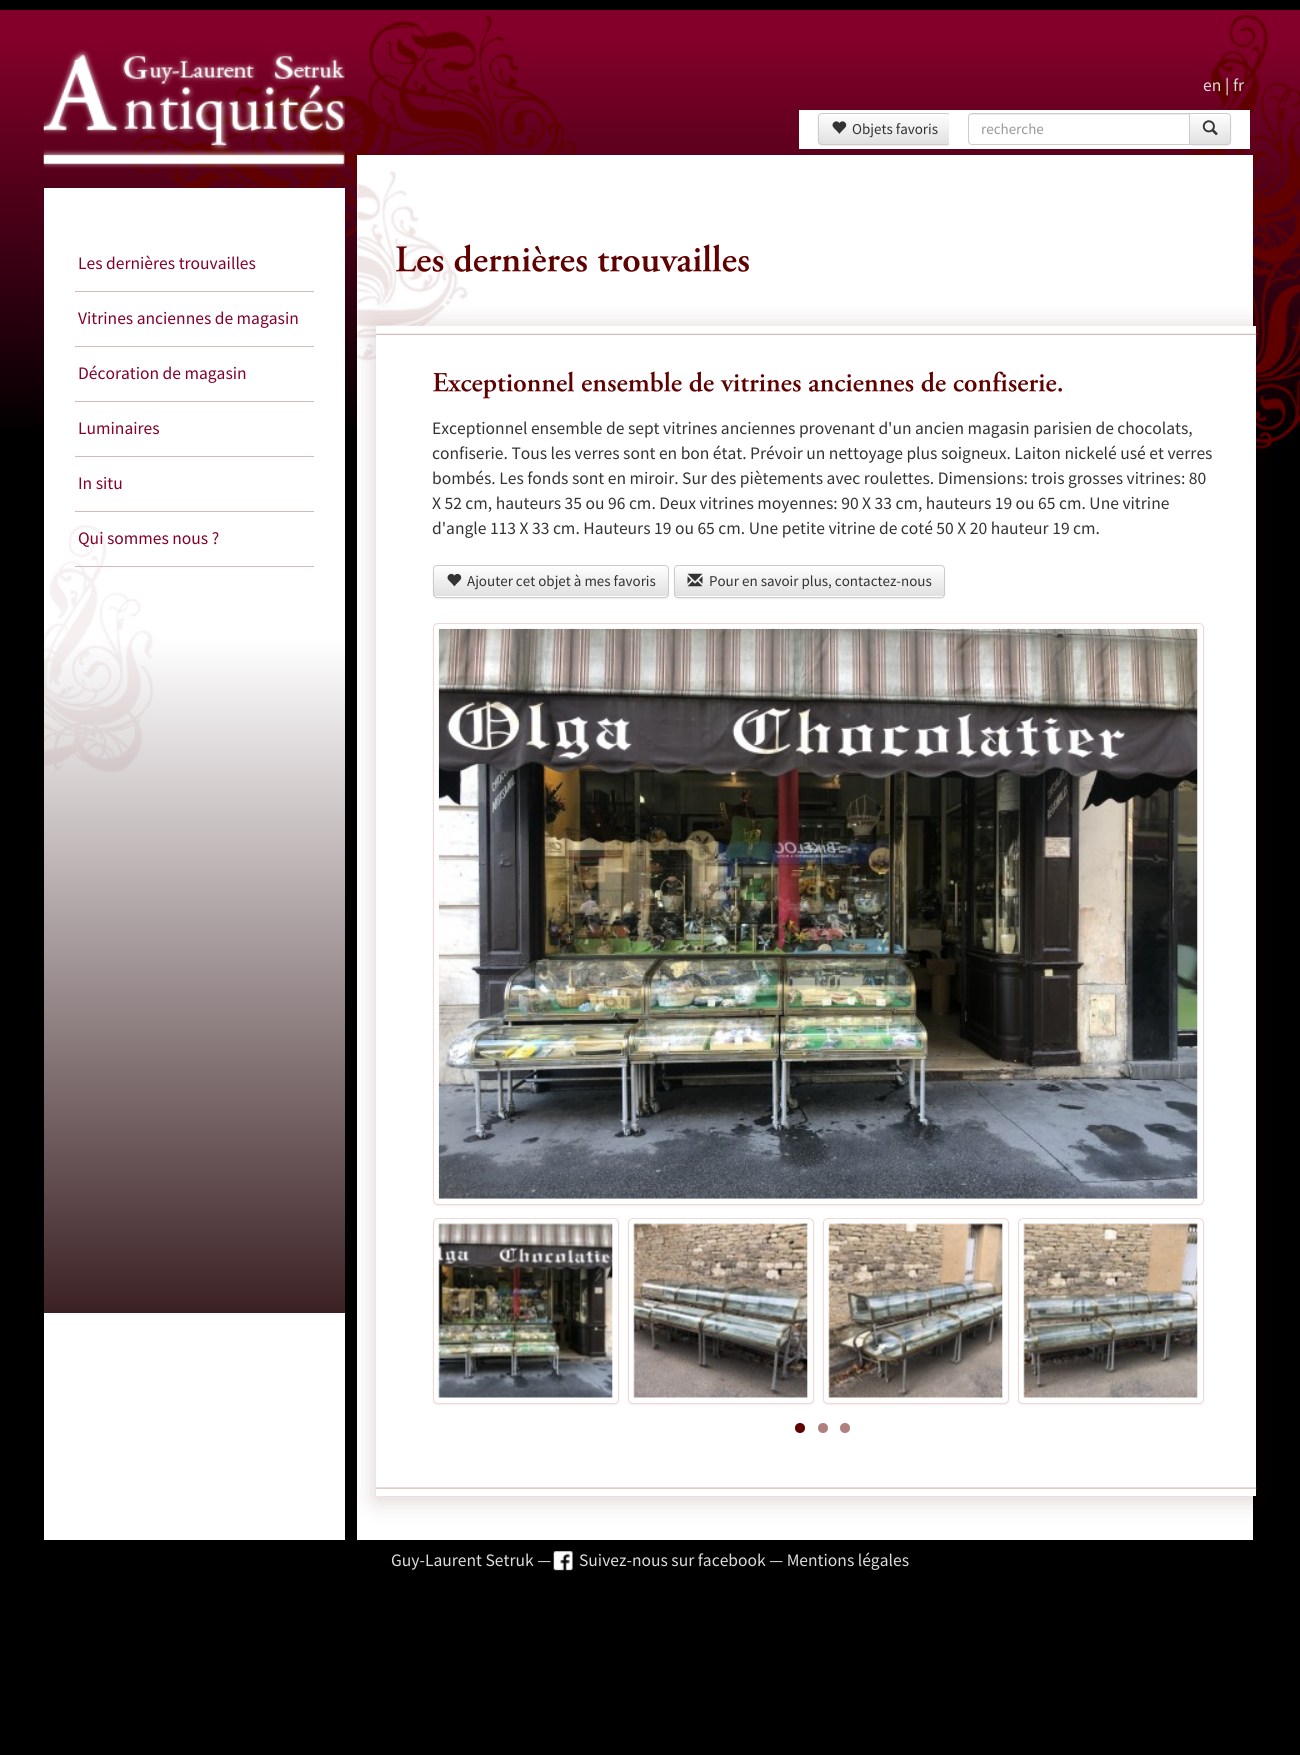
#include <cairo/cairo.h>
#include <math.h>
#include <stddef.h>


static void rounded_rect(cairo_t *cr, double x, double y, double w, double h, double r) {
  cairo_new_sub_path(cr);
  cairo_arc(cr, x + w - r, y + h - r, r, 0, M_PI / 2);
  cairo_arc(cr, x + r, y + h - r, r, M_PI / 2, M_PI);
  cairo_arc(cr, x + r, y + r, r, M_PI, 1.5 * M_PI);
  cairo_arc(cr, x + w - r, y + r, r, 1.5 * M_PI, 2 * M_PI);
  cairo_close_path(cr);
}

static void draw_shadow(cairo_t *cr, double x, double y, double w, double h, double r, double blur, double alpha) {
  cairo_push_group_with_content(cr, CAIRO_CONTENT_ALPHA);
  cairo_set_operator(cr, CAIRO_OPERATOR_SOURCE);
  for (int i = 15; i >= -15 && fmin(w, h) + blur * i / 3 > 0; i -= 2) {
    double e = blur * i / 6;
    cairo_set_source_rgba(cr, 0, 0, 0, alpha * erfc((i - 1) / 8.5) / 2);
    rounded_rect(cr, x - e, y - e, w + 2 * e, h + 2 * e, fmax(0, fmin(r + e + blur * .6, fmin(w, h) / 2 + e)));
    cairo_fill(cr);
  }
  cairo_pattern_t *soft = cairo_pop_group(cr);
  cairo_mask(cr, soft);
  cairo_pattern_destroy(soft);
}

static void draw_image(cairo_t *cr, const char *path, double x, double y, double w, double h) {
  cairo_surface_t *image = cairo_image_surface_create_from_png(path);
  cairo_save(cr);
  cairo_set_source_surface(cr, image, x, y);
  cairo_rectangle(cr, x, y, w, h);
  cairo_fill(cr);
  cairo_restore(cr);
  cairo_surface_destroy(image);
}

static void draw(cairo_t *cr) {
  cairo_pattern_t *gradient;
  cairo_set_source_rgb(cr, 0, 0, 0);
  cairo_paint(cr);
  gradient = cairo_pattern_create_linear(650, 0, 650, 438);
  cairo_pattern_add_color_stop_rgba(gradient, 0.08, 132 / 255.0, 0, 42 / 255.0, 1);
  cairo_pattern_add_color_stop_rgba(gradient, 1, 0, 0, 0, 1);
  cairo_set_source(cr, gradient);
  cairo_pattern_destroy(gradient);
  cairo_rectangle(cr, 0, 10, 1300, 420);
  cairo_fill(cr);
  draw_image(cr, "images/1.png", 0, 0, 1300, 450);
  draw_image(cr, "images/2.png", 43, 49, 302, 120);
  gradient = cairo_pattern_create_linear(194, 188, 194, 1313);
  cairo_pattern_add_color_stop_rgba(gradient, 0.4, 1, 1, 1, 1);
  cairo_pattern_add_color_stop_rgba(gradient, 1, 59 / 255.0, 33 / 255.0, 36 / 255.0, 1);
  cairo_set_source(cr, gradient);
  cairo_pattern_destroy(gradient);
  cairo_rectangle(cr, 44, 188, 301, 1125);
  cairo_fill(cr);
  gradient = cairo_pattern_create_linear(194, 1313, 194, 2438);
  cairo_pattern_add_color_stop_rgba(gradient, 0.4, 1, 1, 1, 1);
  cairo_pattern_add_color_stop_rgba(gradient, 1, 59 / 255.0, 33 / 255.0, 36 / 255.0, 1);
  cairo_set_source(cr, gradient);
  cairo_pattern_destroy(gradient);
  cairo_rectangle(cr, 44, 1313, 301, 227);
  cairo_fill(cr);
  draw_image(cr, "images/3.png", 44, 525, 109, 249);
  cairo_set_source_rgb(cr, 212 / 255.0, 187 / 255.0, 185 / 255.0);
  cairo_rectangle(cr, 75, 291, 239, 1);
  cairo_fill(cr);
  cairo_rectangle(cr, 75, 346, 239, 1);
  cairo_fill(cr);
  cairo_rectangle(cr, 75, 401, 239, 1);
  cairo_fill(cr);
  cairo_rectangle(cr, 75, 456, 239, 1);
  cairo_fill(cr);
  cairo_rectangle(cr, 75, 511, 239, 1);
  cairo_fill(cr);
  cairo_rectangle(cr, 75, 566, 239, 1);
  cairo_fill(cr);
  cairo_set_source_rgb(cr, 1, 1, 1);
  cairo_rectangle(cr, 799, 110, 150, 39);
  cairo_fill(cr);
  cairo_set_source_rgb(cr, 0, 0, 0);
  draw_shadow(cr, 818, 114, 133, 32, 4, 0.5, 0.07);
  cairo_save(cr);
  rounded_rect(cr, 818, 113, 133, 32, 4);
  cairo_clip(cr);
  gradient = cairo_pattern_create_linear(884, 114, 884, 144);
  cairo_pattern_add_color_stop_rgba(gradient, 0, 1, 1, 1, 1);
  cairo_pattern_add_color_stop_rgba(gradient, 1, 224 / 255.0, 224 / 255.0, 224 / 255.0, 1);
  cairo_set_source(cr, gradient);
  cairo_pattern_destroy(gradient);
  cairo_rectangle(cr, 818, 114, 131, 30);
  cairo_fill(cr);
  cairo_restore(cr);
  rounded_rect(cr, 818.5, 113.5, 132, 31, 3.5);
  cairo_set_source_rgb(cr, 204 / 255.0, 204 / 255.0, 204 / 255.0);
  cairo_set_line_width(cr, 1);
  cairo_stroke(cr);
  draw_image(cr, "images/4.png", 832, 121, 15, 13);
  cairo_set_source_rgb(cr, 1, 1, 1);
  cairo_rectangle(cr, 949, 110, 301, 39);
  cairo_fill(cr);
  cairo_set_source_rgb(cr, 0, 0, 0);
  draw_shadow(cr, 1189, 114, 42, 32, 4, 0.5, 0.07);
  cairo_save(cr);
  cairo_new_path(cr);
  cairo_move_to(cr, 1189, 113);
  cairo_line_to(cr, 1227, 113);
  cairo_curve_to(cr, 1229, 113, 1231, 115, 1231, 117);
  cairo_line_to(cr, 1231, 141);
  cairo_curve_to(cr, 1231, 143, 1229, 145, 1227, 145);
  cairo_line_to(cr, 1189, 145);
  cairo_close_path(cr);
  cairo_clip(cr);
  gradient = cairo_pattern_create_linear(1210, 114, 1210, 144);
  cairo_pattern_add_color_stop_rgba(gradient, 0, 1, 1, 1, 1);
  cairo_pattern_add_color_stop_rgba(gradient, 1, 224 / 255.0, 224 / 255.0, 224 / 255.0, 1);
  cairo_set_source(cr, gradient);
  cairo_pattern_destroy(gradient);
  cairo_rectangle(cr, 1190, 114, 41, 30);
  cairo_fill(cr);
  cairo_restore(cr);
  cairo_new_path(cr);
  cairo_move_to(cr, 1189.5, 113.5);
  cairo_line_to(cr, 1227, 113.5);
  cairo_curve_to(cr, 1229, 113.5, 1230.5, 115, 1230.5, 117);
  cairo_line_to(cr, 1230.5, 141);
  cairo_curve_to(cr, 1230.5, 143, 1229, 144.5, 1227, 144.5);
  cairo_line_to(cr, 1189.5, 144.5);
  cairo_close_path(cr);
  cairo_set_source_rgb(cr, 204 / 255.0, 204 / 255.0, 204 / 255.0);
  cairo_stroke(cr);
  cairo_set_source_rgb(cr, 1, 1, 1);
  cairo_new_path(cr);
  cairo_move_to(cr, 972, 113);
  cairo_line_to(cr, 1190, 113);
  cairo_line_to(cr, 1190, 145);
  cairo_line_to(cr, 972, 145);
  cairo_curve_to(cr, 970, 145, 968, 143, 968, 141);
  cairo_line_to(cr, 968, 117);
  cairo_curve_to(cr, 968, 115, 970, 113, 972, 113);
  cairo_close_path(cr);
  cairo_fill(cr);
  cairo_set_source_rgb(cr, 236 / 255.0, 236 / 255.0, 236 / 255.0);
  cairo_new_path(cr);
  cairo_move_to(cr, 971, 115);
  cairo_line_to(cr, 1189, 115);
  cairo_line_to(cr, 1189, 114);
  cairo_line_to(cr, 972, 114);
  cairo_curve_to(cr, 969, 114, 969, 116, 969, 118);
  cairo_curve_to(cr, 969, 116, 970, 115, 971, 115);
  cairo_close_path(cr);
  cairo_fill(cr);
  cairo_new_path(cr);
  cairo_move_to(cr, 972, 113.5);
  cairo_line_to(cr, 1189.5, 113.5);
  cairo_line_to(cr, 1189.5, 144.5);
  cairo_line_to(cr, 972, 144.5);
  cairo_curve_to(cr, 970, 144.5, 968.5, 143, 968.5, 141);
  cairo_line_to(cr, 968.5, 117);
  cairo_curve_to(cr, 968.5, 115, 970, 113.5, 972, 113.5);
  cairo_close_path(cr);
  cairo_set_source_rgb(cr, 204 / 255.0, 204 / 255.0, 204 / 255.0);
  cairo_stroke(cr);
  draw_image(cr, "images/5.png", 1202, 120, 16, 16);
  cairo_set_source_rgb(cr, 1, 1, 1);
  cairo_rectangle(cr, 357, 155, 896, 1385);
  cairo_fill(cr);
  draw_image(cr, "images/6.png", 357, 171, 111, 190);
  draw_image(cr, "images/7.png", 396, 244, 353, 29);
  cairo_set_source_rgb(cr, 60 / 255.0, 0, 0);
  draw_shadow(cr, 376, 329, 880, 1170, 0, 12.5, 0.2);
  cairo_set_source_rgb(cr, 1, 1, 1);
  cairo_rectangle(cr, 376, 326, 880, 1170);
  cairo_fill(cr);
  draw_image(cr, "images/8.png", 376, 333, 881, 1156);
  draw_image(cr, "images/9.png", 433, 371, 629, 28);
  cairo_set_source_rgb(cr, 0, 0, 0);
  draw_shadow(cr, 433, 566, 236, 33, 4, 0.5, 0.07);
  cairo_set_source_rgb(cr, 1, 1, 1);
  rounded_rect(cr, 433, 565, 236, 33, 4);
  cairo_fill(cr);
  cairo_save(cr);
  rounded_rect(cr, 433, 565, 236, 33, 4);
  cairo_clip(cr);
  gradient = cairo_pattern_create_linear(551, 566, 551, 596);
  cairo_pattern_add_color_stop_rgba(gradient, 0, 1, 1, 1, 1);
  cairo_pattern_add_color_stop_rgba(gradient, 1, 224 / 255.0, 224 / 255.0, 224 / 255.0, 1);
  cairo_set_source(cr, gradient);
  cairo_pattern_destroy(gradient);
  cairo_rectangle(cr, 433, 566, 236, 30);
  cairo_fill(cr);
  cairo_restore(cr);
  rounded_rect(cr, 433.5, 565.5, 235, 32, 3.5);
  cairo_set_source_rgb(cr, 204 / 255.0, 204 / 255.0, 204 / 255.0);
  cairo_stroke(cr);
  draw_image(cr, "images/10.png", 447, 573, 15, 14);
  cairo_set_source_rgb(cr, 0, 0, 0);
  draw_shadow(cr, 674, 566, 271, 33, 4, 0.5, 0.07);
  cairo_set_source_rgb(cr, 1, 1, 1);
  rounded_rect(cr, 674, 565, 271, 33, 4);
  cairo_fill(cr);
  cairo_save(cr);
  rounded_rect(cr, 674, 565, 271, 33, 4);
  cairo_clip(cr);
  gradient = cairo_pattern_create_linear(809, 566, 809, 596);
  cairo_pattern_add_color_stop_rgba(gradient, 0, 1, 1, 1, 1);
  cairo_pattern_add_color_stop_rgba(gradient, 1, 224 / 255.0, 224 / 255.0, 224 / 255.0, 1);
  cairo_set_source(cr, gradient);
  cairo_pattern_destroy(gradient);
  cairo_rectangle(cr, 674, 566, 271, 30);
  cairo_fill(cr);
  cairo_restore(cr);
  rounded_rect(cr, 674.5, 565.5, 270, 32, 3.5);
  cairo_set_source_rgb(cr, 204 / 255.0, 204 / 255.0, 204 / 255.0);
  cairo_stroke(cr);
  draw_image(cr, "images/11.png", 687, 573, 16, 14);
  cairo_set_source_rgb(cr, 0, 0, 0);
  draw_shadow(cr, 433, 624, 771, 582, 5, 1, 0.07);
  cairo_set_source_rgb(cr, 1, 1, 1);
  rounded_rect(cr, 433.5, 623.5, 770, 581, 4.5);
  cairo_fill_preserve(cr);
  cairo_set_source_rgb(cr, 241 / 255.0, 215 / 255.0, 214 / 255.0);
  cairo_stroke(cr);
  draw_image(cr, "images/12.png", 438, 628, 760, 571);
  cairo_set_source_rgb(cr, 0, 0, 0);
  draw_shadow(cr, 433, 1219, 186, 186, 5, 1, 0.07);
  cairo_set_source_rgb(cr, 1, 1, 1);
  rounded_rect(cr, 433.5, 1218.5, 185, 185, 4.5);
  cairo_fill_preserve(cr);
  cairo_set_source_rgb(cr, 241 / 255.0, 215 / 255.0, 214 / 255.0);
  cairo_stroke(cr);
  draw_image(cr, "images/13.png", 438, 1223, 175, 175);
  cairo_set_source_rgb(cr, 0, 0, 0);
  draw_shadow(cr, 628, 1219, 186, 186, 5, 1, 0.07);
  cairo_set_source_rgb(cr, 1, 1, 1);
  rounded_rect(cr, 628.5, 1218.5, 185, 185, 4.5);
  cairo_fill_preserve(cr);
  cairo_set_source_rgb(cr, 241 / 255.0, 215 / 255.0, 214 / 255.0);
  cairo_stroke(cr);
  draw_image(cr, "images/14.png", 633, 1223, 175, 175);
  cairo_set_source_rgb(cr, 0, 0, 0);
  draw_shadow(cr, 823, 1219, 186, 186, 5, 1, 0.07);
  cairo_set_source_rgb(cr, 1, 1, 1);
  rounded_rect(cr, 823.5, 1218.5, 185, 185, 4.5);
  cairo_fill_preserve(cr);
  cairo_set_source_rgb(cr, 241 / 255.0, 215 / 255.0, 214 / 255.0);
  cairo_stroke(cr);
  draw_image(cr, "images/15.png", 828, 1223, 175, 175);
  cairo_set_source_rgb(cr, 0, 0, 0);
  draw_shadow(cr, 1018, 1219, 186, 186, 5, 1, 0.07);
  cairo_set_source_rgb(cr, 1, 1, 1);
  rounded_rect(cr, 1018.5, 1218.5, 185, 185, 4.5);
  cairo_fill_preserve(cr);
  cairo_set_source_rgb(cr, 241 / 255.0, 215 / 255.0, 214 / 255.0);
  cairo_stroke(cr);
  draw_image(cr, "images/16.png", 1023, 1223, 175, 175);
  cairo_set_source_rgb(cr, 96 / 255.0, 0, 0);
  cairo_arc(cr, 800, 1428, 5, 0, 2 * M_PI);
  cairo_fill(cr);
  cairo_set_source_rgb(cr, 176 / 255.0, 128 / 255.0, 128 / 255.0);
  cairo_arc(cr, 823, 1428, 5, 0, 2 * M_PI);
  cairo_fill(cr);
  cairo_arc(cr, 845, 1428, 5, 0, 2 * M_PI);
  cairo_fill(cr);
  draw_image(cr, "images/17.png", 553, 1551, 20, 20);
  cairo_select_font_face(cr, "Source Sans Pro", CAIRO_FONT_SLANT_NORMAL, CAIRO_FONT_WEIGHT_NORMAL);
  cairo_set_font_size(cr, 17.5);
  cairo_set_source_rgb(cr, 132 / 255.0, 0, 41 / 255.0);
  cairo_move_to(cr, 78, 269);
  cairo_show_text(cr, "Les dernières trouvailles");
  cairo_move_to(cr, 78, 324);
  cairo_show_text(cr, "Vitrines anciennes de magasin");
  cairo_move_to(cr, 78, 379);
  cairo_show_text(cr, "Décoration de magasin");
  cairo_move_to(cr, 78, 434);
  cairo_show_text(cr, "Luminaires");
  cairo_move_to(cr, 78, 489);
  cairo_show_text(cr, "In situ");
  cairo_move_to(cr, 78, 544);
  cairo_show_text(cr, "Qui sommes nous ?");
  cairo_set_source_rgb(cr, 221 / 255.0, 221 / 255.0, 221 / 255.0);
  cairo_move_to(cr, 1203, 91);
  cairo_show_text(cr, "en");
  cairo_set_source_rgb(cr, 1, 1, 1);
  cairo_move_to(cr, 1225, 91);
  cairo_show_text(cr, "|");
  cairo_set_source_rgb(cr, 221 / 255.0, 221 / 255.0, 221 / 255.0);
  cairo_move_to(cr, 1233, 91);
  cairo_show_text(cr, "fr");
  cairo_set_font_size(cr, 15);
  cairo_set_source_rgb(cr, 51 / 255.0, 51 / 255.0, 51 / 255.0);
  cairo_move_to(cr, 852, 134);
  cairo_show_text(cr, "Objets favoris");
  cairo_set_source_rgb(cr, 153 / 255.0, 153 / 255.0, 153 / 255.0);
  cairo_move_to(cr, 981, 134);
  cairo_show_text(cr, "recherche");
  cairo_set_font_size(cr, 17.5);
  cairo_set_source_rgb(cr, 51 / 255.0, 51 / 255.0, 51 / 255.0);
  cairo_move_to(cr, 432, 434);
  cairo_show_text(cr, "Exceptionnel ensemble de sept vitrines anciennes provenant d'un ancien magasin parisien de chocolats,");
  cairo_move_to(cr, 432, 459);
  cairo_show_text(cr, "confiserie. Tous les verres sont en bon état. Prévoir un nettoyage plus soigneux. Laiton nickelé usé et verres");
  cairo_move_to(cr, 432, 484);
  cairo_show_text(cr, "bombés. Les fonds sont en miroir. Sur des piètements avec roulettes. Dimensions: trois grosses vitrines: 80");
  cairo_move_to(cr, 432, 509);
  cairo_show_text(cr, "X 52 cm, hauteurs 35 ou 96 cm. Deux vitrines moyennes: 90 X 33 cm, hauteurs 19 ou 65 cm. Une vitrine");
  cairo_move_to(cr, 432, 534);
  cairo_show_text(cr, "d'angle 113 X 33 cm. Hauteurs 19 ou 65 cm. Une petite vitrine de coté 50 X 20 hauteur 19 cm.");
  cairo_set_font_size(cr, 15);
  cairo_move_to(cr, 467, 586);
  cairo_show_text(cr, "Ajouter cet objet à mes favoris");
  cairo_move_to(cr, 709, 586);
  cairo_show_text(cr, "Pour en savoir plus, contactez-nous");
  cairo_set_font_size(cr, 17.5);
  cairo_set_source_rgb(cr, 221 / 255.0, 221 / 255.0, 221 / 255.0);
  cairo_move_to(cr, 391, 1566);
  cairo_show_text(cr, "Guy-Laurent Setruk —");
  cairo_move_to(cr, 579, 1566);
  cairo_show_text(cr, "Suivez-nous sur facebook — Mentions légales");
}

int main(void) {
  cairo_surface_t *surface = cairo_image_surface_create(CAIRO_FORMAT_RGB24, 1300, 1755);
  cairo_t *cr = cairo_create(surface);
  cairo_font_options_t *options = cairo_font_options_create();
  cairo_font_options_set_hint_metrics(options, CAIRO_HINT_METRICS_OFF);
  cairo_font_options_set_hint_style(options, CAIRO_HINT_STYLE_NONE);
  cairo_set_font_options(cr, options);
  cairo_set_miter_limit(cr, 4);
  draw(cr);
  cairo_surface_write_to_png(surface, "out.png");
  cairo_font_options_destroy(options);
  cairo_destroy(cr);
  cairo_surface_destroy(surface);
  return 0;
}
